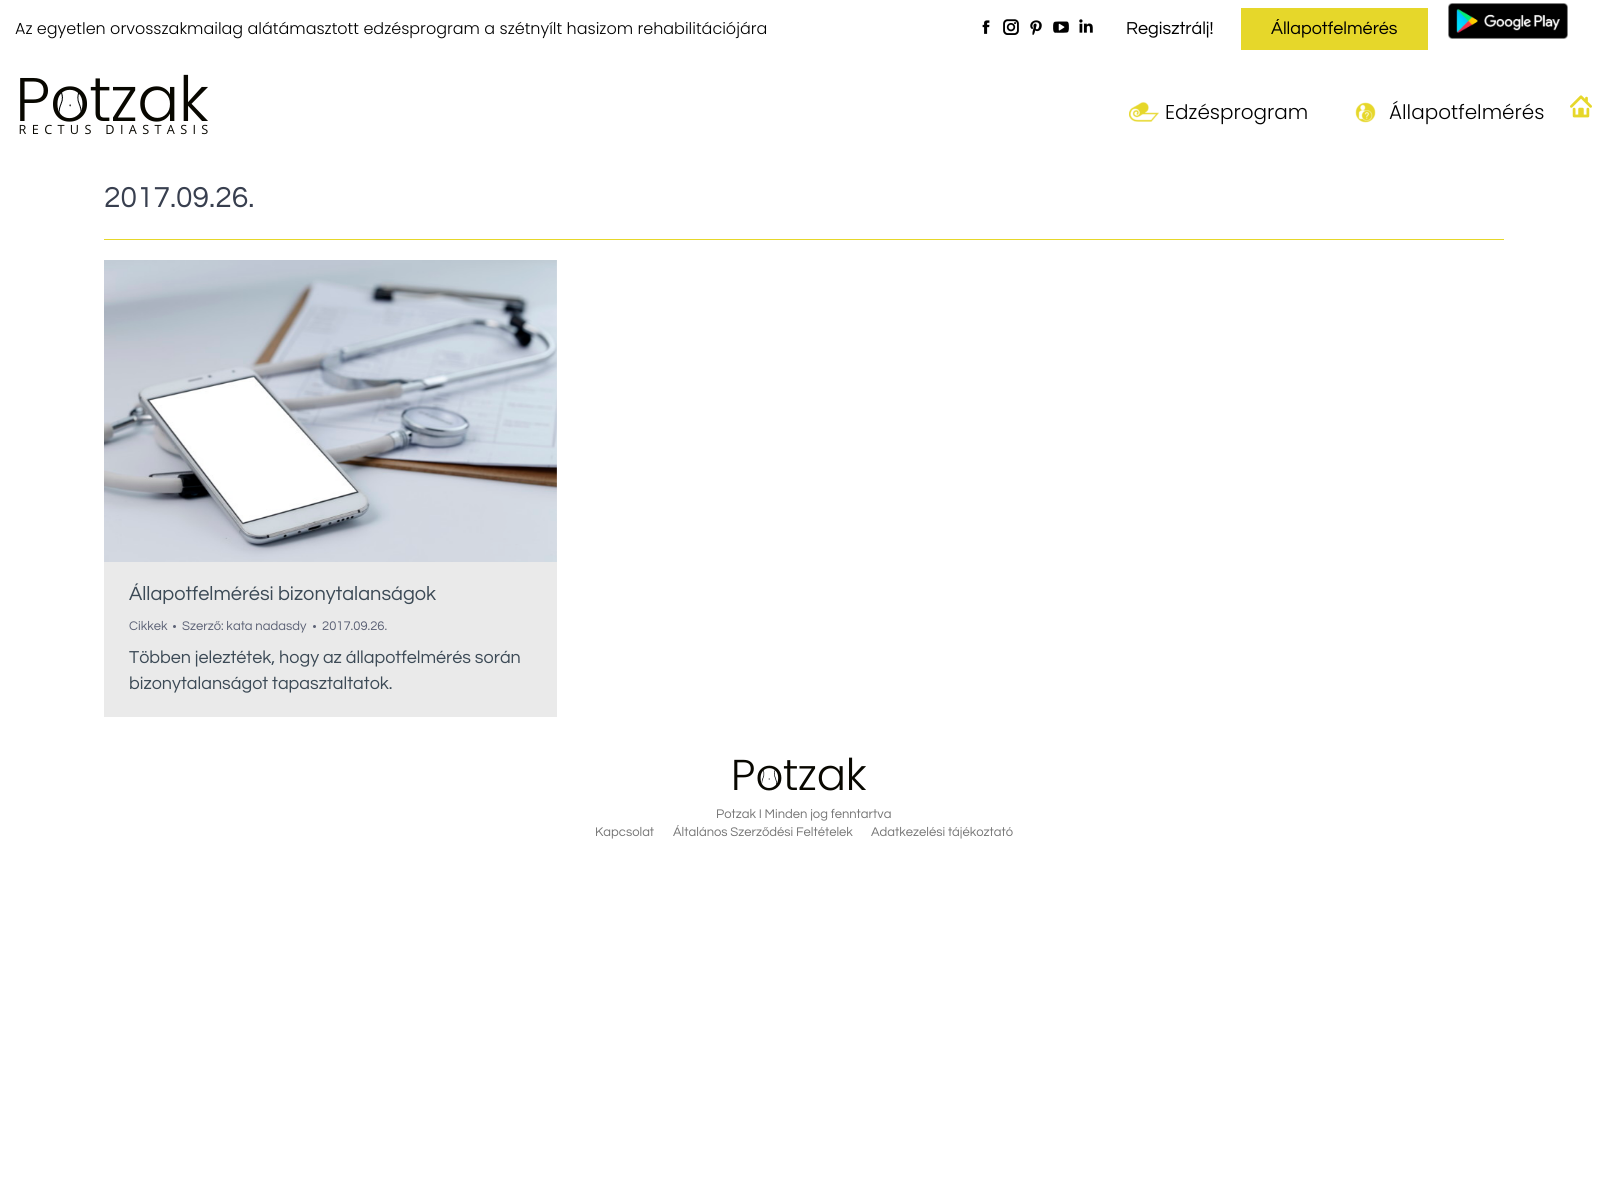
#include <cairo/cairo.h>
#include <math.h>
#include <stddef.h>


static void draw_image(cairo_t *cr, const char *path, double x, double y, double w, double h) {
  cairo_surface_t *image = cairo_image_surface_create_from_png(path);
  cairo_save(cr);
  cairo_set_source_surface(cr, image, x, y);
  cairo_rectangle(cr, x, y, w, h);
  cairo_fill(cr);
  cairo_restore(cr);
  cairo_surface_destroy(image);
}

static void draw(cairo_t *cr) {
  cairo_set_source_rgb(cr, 1, 1, 1);
  cairo_paint(cr);
  draw_image(cr, "images/1.png", 982, 20, 8, 14);
  draw_image(cr, "images/2.png", 1003, 19, 16, 16);
  draw_image(cr, "images/3.png", 1030, 20, 12, 15);
  draw_image(cr, "images/4.png", 1053, 21, 16, 12);
  draw_image(cr, "images/5.png", 1079, 19, 14, 14);
  cairo_set_source_rgb(cr, 230 / 255.0, 215 / 255.0, 42 / 255.0);
  cairo_rectangle(cr, 1241, 8, 187, 42);
  cairo_fill(cr);
  draw_image(cr, "images/6.png", 1448, 3, 120, 36);
  draw_image(cr, "images/7.png", 19, 74, 189, 61);
  draw_image(cr, "images/8.png", 1129, 102, 30, 20);
  draw_image(cr, "images/9.png", 1355, 102, 21, 21);
  draw_image(cr, "images/10.png", 1570, 95, 22, 23);
  cairo_rectangle(cr, 104, 239, 1400, 1);
  cairo_fill(cr);
  cairo_set_source_rgb(cr, 234 / 255.0, 234 / 255.0, 234 / 255.0);
  cairo_rectangle(cr, 104, 260, 453, 457);
  cairo_fill(cr);
  draw_image(cr, "images/11.png", 104, 260, 453, 302);
  cairo_set_source_rgb(cr, 91 / 255.0, 97 / 255.0, 117 / 255.0);
  cairo_arc(cr, 174.5, 626.5, 1.5, 0, 2 * M_PI);
  cairo_fill(cr);
  cairo_arc(cr, 314.5, 626.5, 1.5, 0, 2 * M_PI);
  cairo_fill(cr);
  draw_image(cr, "images/12.png", 734, 757, 132, 34);
  cairo_select_font_face(cr, "Poppins Light", CAIRO_FONT_SLANT_NORMAL, CAIRO_FONT_WEIGHT_NORMAL);
  cairo_set_font_size(cr, 16);
  cairo_set_source_rgb(cr, 0, 0, 0);
  cairo_move_to(cr, 15, 34);
  cairo_show_text(cr, "Az egyetlen orvosszakmailag alátámasztott edzésprogram a szétnyílt hasizom rehabilitációjára");
  cairo_select_font_face(cr, "Questrial", CAIRO_FONT_SLANT_NORMAL, CAIRO_FONT_WEIGHT_NORMAL);
  cairo_set_font_size(cr, 18);
  cairo_move_to(cr, 1126, 34);
  cairo_show_text(cr, "Regisztrálj!");
  cairo_move_to(cr, 1271, 34);
  cairo_show_text(cr, "Állapotfelmérés");
  cairo_select_font_face(cr, "Poppins Light", CAIRO_FONT_SLANT_NORMAL, CAIRO_FONT_WEIGHT_NORMAL);
  cairo_set_font_size(cr, 20);
  cairo_move_to(cr, 1165, 119);
  cairo_show_text(cr, "Edzésprogram");
  cairo_move_to(cr, 1389, 119);
  cairo_show_text(cr, "Állapotfelmérés");
  cairo_select_font_face(cr, "Questrial", CAIRO_FONT_SLANT_NORMAL, CAIRO_FONT_WEIGHT_NORMAL);
  cairo_set_font_size(cr, 30);
  cairo_set_source_rgb(cr, 56 / 255.0, 63 / 255.0, 79 / 255.0);
  cairo_move_to(cr, 104, 207);
  cairo_show_text(cr, "2017.09.26.");
  cairo_set_font_size(cr, 20);
  cairo_set_source_rgb(cr, 60 / 255.0, 74 / 255.0, 86 / 255.0);
  cairo_move_to(cr, 129, 600);
  cairo_show_text(cr, "Állapotfelmérési bizonytalanságok");
  cairo_set_font_size(cr, 13);
  cairo_set_source_rgb(cr, 91 / 255.0, 97 / 255.0, 117 / 255.0);
  cairo_move_to(cr, 129, 630);
  cairo_show_text(cr, "Cikkek");
  cairo_move_to(cr, 182, 630);
  cairo_show_text(cr, "Szerző: kata nadasdy");
  cairo_move_to(cr, 322, 630);
  cairo_show_text(cr, "2017.09.26.");
  cairo_set_font_size(cr, 18);
  cairo_set_source_rgb(cr, 60 / 255.0, 74 / 255.0, 86 / 255.0);
  cairo_move_to(cr, 129, 663);
  cairo_show_text(cr, "Többen jeleztétek, hogy az állapotfelmérés során");
  cairo_move_to(cr, 129, 689);
  cairo_show_text(cr, "bizonytalanságot tapasztaltatok.");
  cairo_set_font_size(cr, 13);
  cairo_set_source_rgb(cr, 117 / 255.0, 117 / 255.0, 117 / 255.0);
  cairo_move_to(cr, 716, 818);
  cairo_show_text(cr, "Potzak I Minden jog fenntartva");
  cairo_move_to(cr, 595, 836);
  cairo_show_text(cr, "Kapcsolat");
  cairo_move_to(cr, 673, 836);
  cairo_show_text(cr, "Általános Szerződési Feltételek");
  cairo_move_to(cr, 871, 836);
  cairo_show_text(cr, "Adatkezelési tájékoztató");
}

int main(void) {
  cairo_surface_t *surface = cairo_image_surface_create(CAIRO_FORMAT_RGB24, 1608, 1204);
  cairo_t *cr = cairo_create(surface);
  cairo_font_options_t *options = cairo_font_options_create();
  cairo_font_options_set_hint_metrics(options, CAIRO_HINT_METRICS_OFF);
  cairo_font_options_set_hint_style(options, CAIRO_HINT_STYLE_NONE);
  cairo_set_font_options(cr, options);
  cairo_set_miter_limit(cr, 4);
  draw(cr);
  cairo_surface_write_to_png(surface, "out.png");
  cairo_font_options_destroy(options);
  cairo_destroy(cr);
  cairo_surface_destroy(surface);
  return 0;
}
